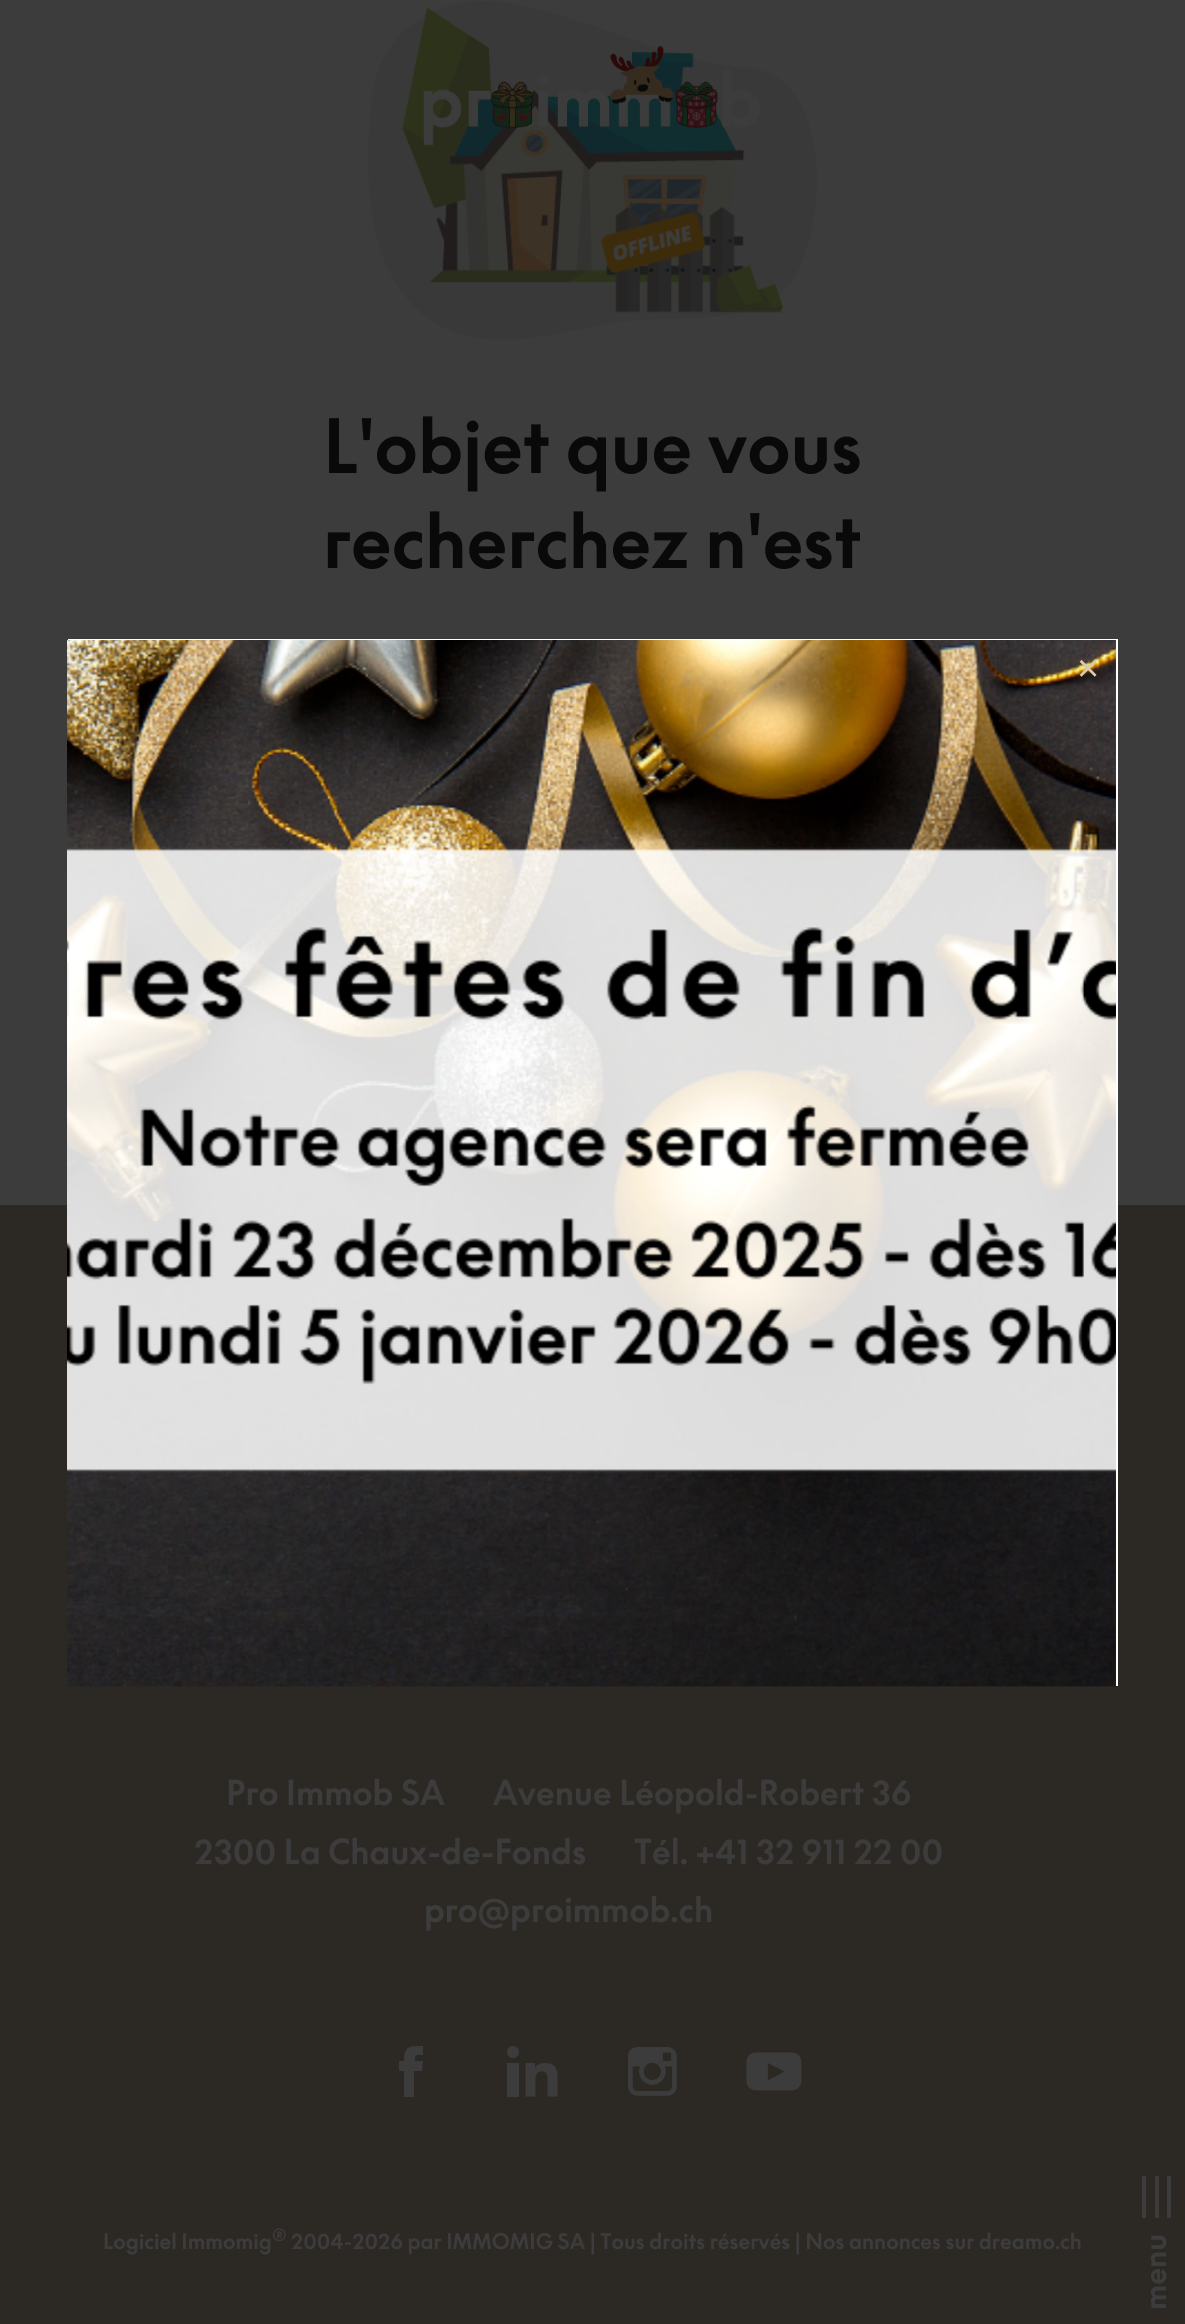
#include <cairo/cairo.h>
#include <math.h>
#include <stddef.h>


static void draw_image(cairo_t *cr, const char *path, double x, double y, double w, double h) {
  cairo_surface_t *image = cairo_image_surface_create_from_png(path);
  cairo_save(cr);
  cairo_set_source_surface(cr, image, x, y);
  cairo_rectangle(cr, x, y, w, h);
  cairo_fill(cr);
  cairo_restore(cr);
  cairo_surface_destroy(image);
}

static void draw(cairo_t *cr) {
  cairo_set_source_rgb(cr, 60 / 255.0, 60 / 255.0, 60 / 255.0);
  cairo_paint(cr);
  draw_image(cr, "images/1.png", 367, 1, 451, 339);
  cairo_set_source_rgb(cr, 44 / 255.0, 40 / 255.0, 36 / 255.0);
  cairo_rectangle(cr, 0, 1205, 1185, 1119);
  cairo_fill(cr);
  cairo_set_source_rgb(cr, 60 / 255.0, 60 / 255.0, 60 / 255.0);
  cairo_new_path(cr);
  cairo_move_to(cr, 404, 2097);
  cairo_line_to(cr, 414, 2097);
  cairo_line_to(cr, 414, 2071);
  cairo_line_to(cr, 422, 2071);
  cairo_line_to(cr, 423, 2061);
  cairo_line_to(cr, 415, 2061);
  cairo_curve_to(cr, 415, 2054, 415, 2055, 423, 2055);
  cairo_line_to(cr, 423, 2046);
  cairo_curve_to(cr, 409, 2046, 404, 2046, 404, 2061);
  cairo_line_to(cr, 399, 2061);
  cairo_line_to(cr, 399, 2071);
  cairo_line_to(cr, 404, 2071);
  cairo_close_path(cr);
  cairo_fill(cr);
  draw_image(cr, "images/2.png", 507, 2046, 51, 51);
  draw_image(cr, "images/3.png", 628, 2047, 49, 49);
  draw_image(cr, "images/4.png", 746, 2052, 56, 39);
  draw_image(cr, "images/5.png", 423, 46, 337, 100);
  cairo_rectangle(cr, 1142, 2176, 4, 42);
  cairo_fill(cr);
  cairo_rectangle(cr, 1155, 2176, 4, 42);
  cairo_fill(cr);
  cairo_rectangle(cr, 1167, 2176, 4, 42);
  cairo_fill(cr);
  cairo_set_source_rgb(cr, 1, 1, 1);
  cairo_rectangle(cr, 68, 639, 1050, 1047);
  cairo_fill(cr);
  draw_image(cr, "images/6.png", 67, 640, 1049, 1047);
  cairo_select_font_face(cr, "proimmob", CAIRO_FONT_SLANT_NORMAL, CAIRO_FONT_WEIGHT_BOLD);
  cairo_set_font_size(cr, 72.75);
  cairo_set_source_rgb(cr, 9 / 255.0, 9 / 255.0, 9 / 255.0);
  cairo_move_to(cr, 323, 473);
  cairo_show_text(cr, "L'objet que vous");
  cairo_move_to(cr, 323, 568);
  cairo_show_text(cr, "recherchez n'est");
  cairo_set_font_size(cr, 33.6);
  cairo_set_source_rgb(cr, 60 / 255.0, 60 / 255.0, 60 / 255.0);
  cairo_move_to(cr, 226, 1805);
  cairo_show_text(cr, "Pro Immob SA");
  cairo_move_to(cr, 493, 1805);
  cairo_show_text(cr, "Avenue Léopold-Robert 36");
  cairo_move_to(cr, 194, 1864);
  cairo_show_text(cr, "2300 La Chaux-de-Fonds");
  cairo_move_to(cr, 634, 1864);
  cairo_show_text(cr, "Tél. +41 32 911 22 00");
  cairo_move_to(cr, 424, 1922);
  cairo_show_text(cr, "pro@proimmob.ch");
  cairo_set_font_size(cr, 21);
  cairo_move_to(cr, 103, 2249);
  cairo_show_text(cr, "Logiciel Immomig");
  cairo_set_font_size(cr, 16);
  cairo_move_to(cr, 272, 2241);
  cairo_show_text(cr, "®");
  cairo_set_font_size(cr, 21);
  cairo_move_to(cr, 291, 2249);
  cairo_show_text(cr, "2004-2026 par IMMOMIG SA | Tous droits réservés | Nos annonces sur dreamo.ch");
  cairo_set_font_size(cr, 30);
  cairo_save(cr);
  cairo_translate(cr, 1166, 2310);
  cairo_rotate(cr, -90 * M_PI / 180);
  cairo_move_to(cr, 0, 0);
  cairo_show_text(cr, "menu");
  cairo_restore(cr);
  cairo_select_font_face(cr, "Liberation Sans", CAIRO_FONT_SLANT_NORMAL, CAIRO_FONT_WEIGHT_NORMAL);
  cairo_set_font_size(cr, 38);
  cairo_set_source_rgb(cr, 214 / 255.0, 203 / 255.0, 181 / 255.0);
  cairo_move_to(cr, 1077, 681);
  cairo_show_text(cr, "×");
}

int main(void) {
  cairo_surface_t *surface = cairo_image_surface_create(CAIRO_FORMAT_RGB24, 1185, 2324);
  cairo_t *cr = cairo_create(surface);
  cairo_font_options_t *options = cairo_font_options_create();
  cairo_font_options_set_hint_metrics(options, CAIRO_HINT_METRICS_OFF);
  cairo_font_options_set_hint_style(options, CAIRO_HINT_STYLE_NONE);
  cairo_set_font_options(cr, options);
  cairo_set_miter_limit(cr, 4);
  draw(cr);
  cairo_surface_write_to_png(surface, "out.png");
  cairo_font_options_destroy(options);
  cairo_destroy(cr);
  cairo_surface_destroy(surface);
  return 0;
}
